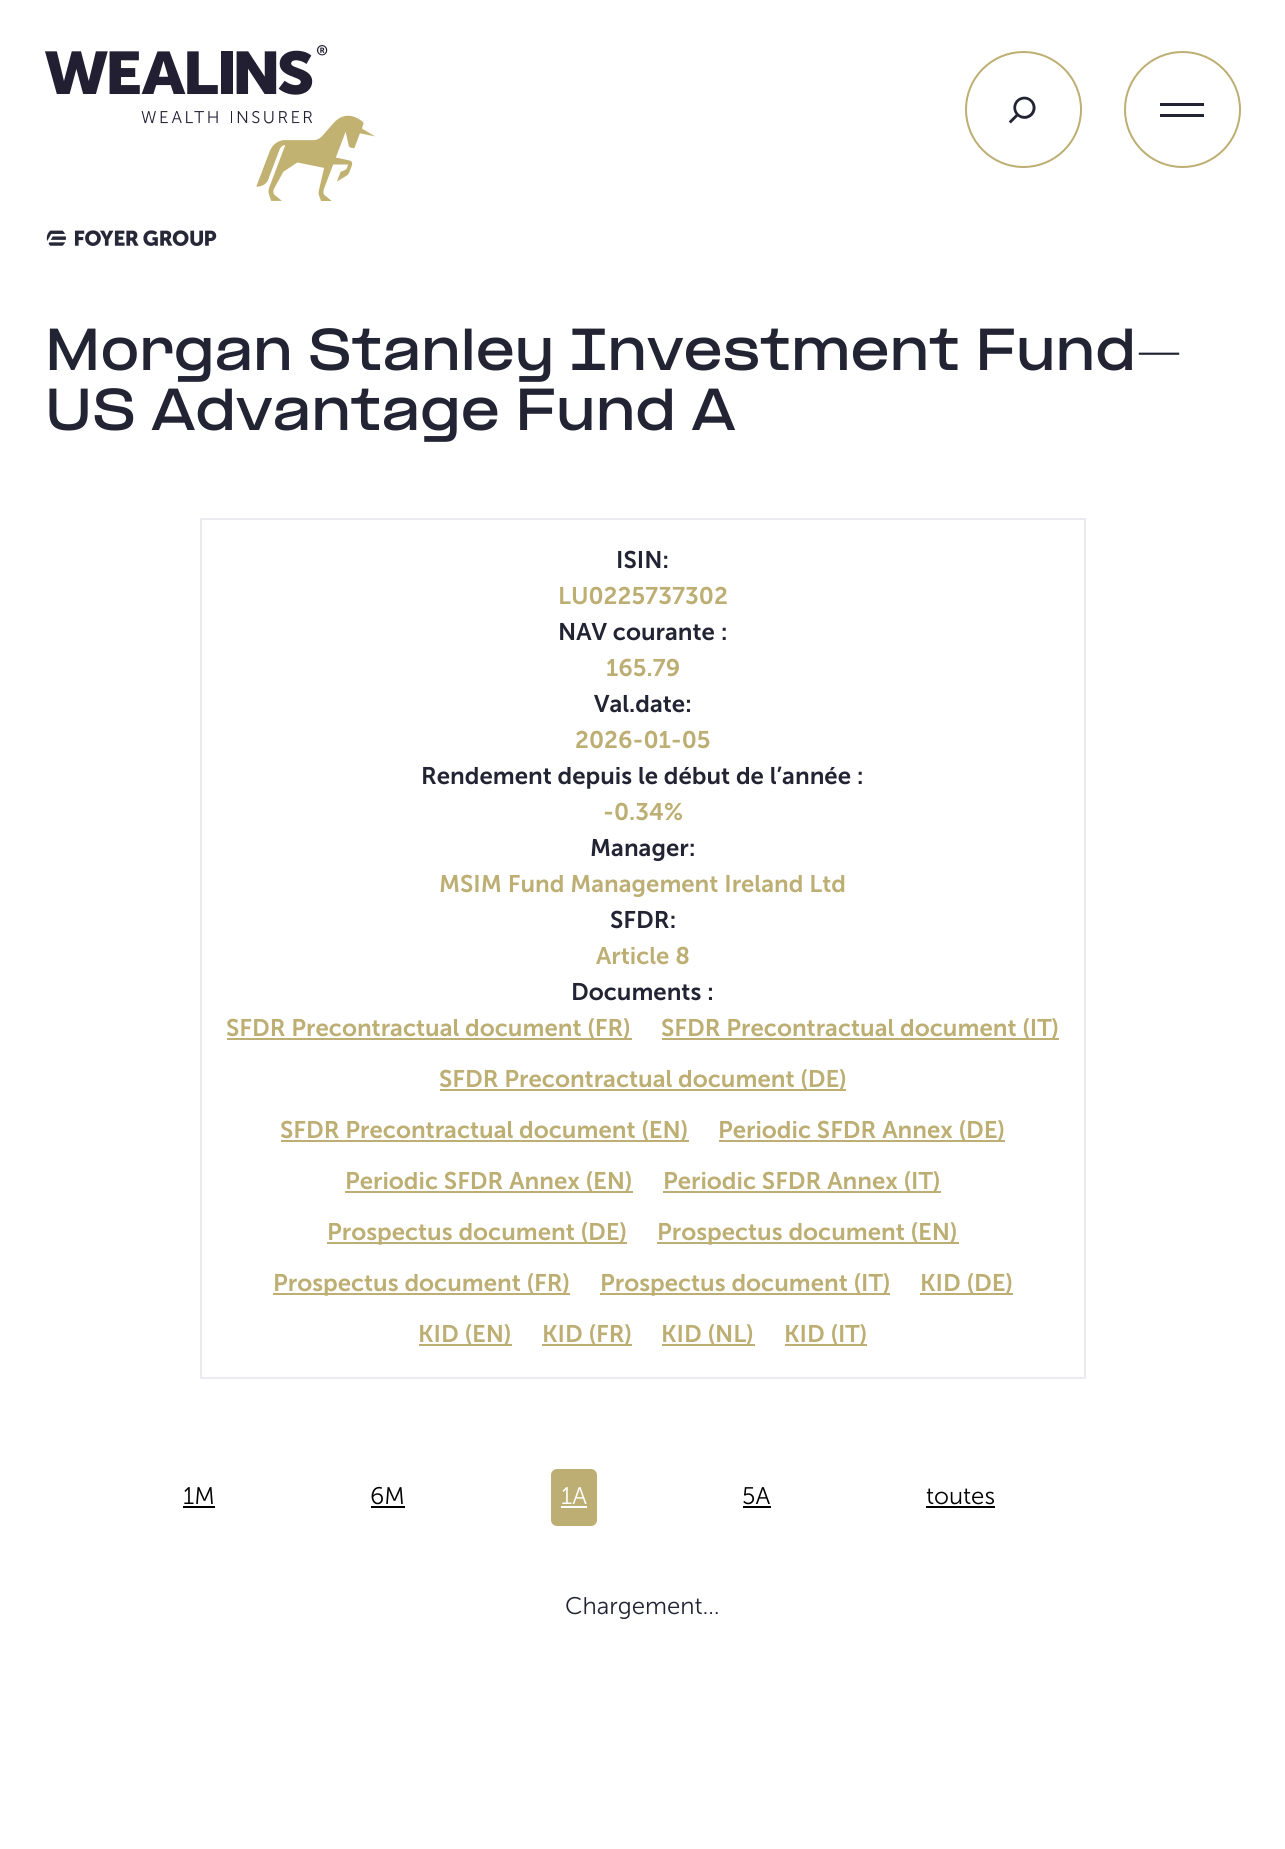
#include <cairo/cairo.h>
#include <math.h>
#include <stddef.h>


static void rounded_rect(cairo_t *cr, double x, double y, double w, double h, double r) {
  cairo_new_sub_path(cr);
  cairo_arc(cr, x + w - r, y + h - r, r, 0, M_PI / 2);
  cairo_arc(cr, x + r, y + h - r, r, M_PI / 2, M_PI);
  cairo_arc(cr, x + r, y + r, r, M_PI, 1.5 * M_PI);
  cairo_arc(cr, x + w - r, y + r, r, 1.5 * M_PI, 2 * M_PI);
  cairo_close_path(cr);
}

static void draw_image(cairo_t *cr, const char *path, double x, double y, double w, double h) {
  cairo_surface_t *image = cairo_image_surface_create_from_png(path);
  cairo_save(cr);
  cairo_set_source_surface(cr, image, x, y);
  cairo_rectangle(cr, x, y, w, h);
  cairo_fill(cr);
  cairo_restore(cr);
  cairo_surface_destroy(image);
}

static void draw(cairo_t *cr) {
  cairo_set_source_rgb(cr, 1, 1, 1);
  cairo_paint(cr);
  draw_image(cr, "images/1.png", 45, 45, 330, 201);
  cairo_arc(cr, 1023.5, 109.5, 57.5, 0, 2 * M_PI);
  cairo_set_source_rgb(cr, 189 / 255.0, 174 / 255.0, 115 / 255.0);
  cairo_stroke(cr);
  draw_image(cr, "images/2.png", 1008, 96, 28, 28);
  cairo_arc(cr, 1182.5, 109.5, 57.5, 0, 2 * M_PI);
  cairo_stroke(cr);
  cairo_set_source_rgb(cr, 34 / 255.0, 36 / 255.0, 52 / 255.0);
  cairo_rectangle(cr, 1160, 103, 44, 3);
  cairo_fill(cr);
  cairo_rectangle(cr, 1160, 114, 44, 3);
  cairo_fill(cr);
  cairo_rectangle(cr, 201, 519, 884, 859);
  cairo_set_source_rgb(cr, 234 / 255.0, 234 / 255.0, 243 / 255.0);
  cairo_stroke(cr);
  cairo_set_source_rgb(cr, 189 / 255.0, 174 / 255.0, 115 / 255.0);
  cairo_rectangle(cr, 227, 1038, 405, 2);
  cairo_fill(cr);
  cairo_rectangle(cr, 662, 1038, 397, 2);
  cairo_fill(cr);
  cairo_rectangle(cr, 440, 1089, 406, 2);
  cairo_fill(cr);
  cairo_rectangle(cr, 281, 1140, 408, 2);
  cairo_fill(cr);
  cairo_rectangle(cr, 719, 1140, 286, 2);
  cairo_fill(cr);
  cairo_rectangle(cr, 345, 1191, 288, 2);
  cairo_fill(cr);
  cairo_rectangle(cr, 663, 1191, 278, 2);
  cairo_fill(cr);
  cairo_rectangle(cr, 327, 1242, 300, 2);
  cairo_fill(cr);
  cairo_rectangle(cr, 657, 1242, 302, 2);
  cairo_fill(cr);
  cairo_rectangle(cr, 273, 1293, 297, 2);
  cairo_fill(cr);
  cairo_rectangle(cr, 600, 1293, 290, 2);
  cairo_fill(cr);
  cairo_rectangle(cr, 920, 1293, 93, 2);
  cairo_fill(cr);
  cairo_rectangle(cr, 419, 1344, 93, 2);
  cairo_fill(cr);
  cairo_rectangle(cr, 542, 1344, 90, 2);
  cairo_fill(cr);
  cairo_rectangle(cr, 662, 1344, 93, 2);
  cairo_fill(cr);
  cairo_rectangle(cr, 785, 1344, 82, 2);
  cairo_fill(cr);
  cairo_set_source_rgb(cr, 0, 0, 0);
  cairo_rectangle(cr, 183, 1506, 32, 2);
  cairo_fill(cr);
  cairo_rectangle(cr, 371, 1506, 34, 2);
  cairo_fill(cr);
  cairo_set_source_rgb(cr, 189 / 255.0, 174 / 255.0, 115 / 255.0);
  rounded_rect(cr, 551, 1469, 46, 57, 6);
  cairo_fill(cr);
  cairo_set_source_rgb(cr, 1, 1, 1);
  cairo_rectangle(cr, 561, 1506, 26, 2);
  cairo_fill(cr);
  cairo_set_source_rgb(cr, 0, 0, 0);
  cairo_rectangle(cr, 743, 1506, 28, 2);
  cairo_fill(cr);
  cairo_rectangle(cr, 926, 1506, 69, 2);
  cairo_fill(cr);
  cairo_select_font_face(cr, "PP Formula", CAIRO_FONT_SLANT_NORMAL, CAIRO_FONT_WEIGHT_BOLD);
  cairo_set_font_size(cr, 49.3);
  cairo_set_source_rgb(cr, 34 / 255.0, 36 / 255.0, 52 / 255.0);
  cairo_move_to(cr, 45, 370);
  cairo_show_text(cr, "Morgan Stanley Investment Fund-");
  cairo_move_to(cr, 45, 430);
  cairo_show_text(cr, "US Advantage Fund A");
  cairo_select_font_face(cr, "Museo Sans SemiBold", CAIRO_FONT_SLANT_NORMAL, CAIRO_FONT_WEIGHT_NORMAL);
  cairo_set_font_size(cr, 24);
  cairo_move_to(cr, 616, 568);
  cairo_show_text(cr, "ISIN:");
  cairo_set_source_rgb(cr, 189 / 255.0, 174 / 255.0, 115 / 255.0);
  cairo_move_to(cr, 558, 604);
  cairo_show_text(cr, "LU0225737302");
  cairo_set_source_rgb(cr, 34 / 255.0, 36 / 255.0, 52 / 255.0);
  cairo_move_to(cr, 558, 640);
  cairo_show_text(cr, "NAV courante :");
  cairo_set_source_rgb(cr, 189 / 255.0, 174 / 255.0, 115 / 255.0);
  cairo_move_to(cr, 606, 676);
  cairo_show_text(cr, "165.79");
  cairo_set_source_rgb(cr, 34 / 255.0, 36 / 255.0, 52 / 255.0);
  cairo_move_to(cr, 594, 712);
  cairo_show_text(cr, "Val.date:");
  cairo_set_source_rgb(cr, 189 / 255.0, 174 / 255.0, 115 / 255.0);
  cairo_move_to(cr, 575, 748);
  cairo_show_text(cr, "2026-01-05");
  cairo_set_source_rgb(cr, 34 / 255.0, 36 / 255.0, 52 / 255.0);
  cairo_move_to(cr, 421, 784);
  cairo_show_text(cr, "Rendement depuis le début de l’année :");
  cairo_set_source_rgb(cr, 189 / 255.0, 174 / 255.0, 115 / 255.0);
  cairo_move_to(cr, 603, 820);
  cairo_show_text(cr, "-0.34%");
  cairo_set_source_rgb(cr, 34 / 255.0, 36 / 255.0, 52 / 255.0);
  cairo_move_to(cr, 590, 856);
  cairo_show_text(cr, "Manager:");
  cairo_set_source_rgb(cr, 189 / 255.0, 174 / 255.0, 115 / 255.0);
  cairo_move_to(cr, 439, 892);
  cairo_show_text(cr, "MSIM Fund Management Ireland Ltd");
  cairo_set_source_rgb(cr, 34 / 255.0, 36 / 255.0, 52 / 255.0);
  cairo_move_to(cr, 610, 928);
  cairo_show_text(cr, "SFDR:");
  cairo_set_source_rgb(cr, 189 / 255.0, 174 / 255.0, 115 / 255.0);
  cairo_move_to(cr, 596, 964);
  cairo_show_text(cr, "Article 8");
  cairo_set_source_rgb(cr, 34 / 255.0, 36 / 255.0, 52 / 255.0);
  cairo_move_to(cr, 571, 1000);
  cairo_show_text(cr, "Documents :");
  cairo_set_source_rgb(cr, 189 / 255.0, 174 / 255.0, 115 / 255.0);
  cairo_move_to(cr, 226, 1036);
  cairo_show_text(cr, "SFDR Precontractual document (FR)");
  cairo_move_to(cr, 661, 1036);
  cairo_show_text(cr, "SFDR Precontractual document (IT)");
  cairo_move_to(cr, 439, 1087);
  cairo_show_text(cr, "SFDR Precontractual document (DE)");
  cairo_move_to(cr, 280, 1138);
  cairo_show_text(cr, "SFDR Precontractual document (EN)");
  cairo_move_to(cr, 718, 1138);
  cairo_show_text(cr, "Periodic SFDR Annex (DE)");
  cairo_move_to(cr, 345, 1189);
  cairo_show_text(cr, "Periodic SFDR Annex (EN)");
  cairo_move_to(cr, 663, 1189);
  cairo_show_text(cr, "Periodic SFDR Annex (IT)");
  cairo_move_to(cr, 327, 1240);
  cairo_show_text(cr, "Prospectus document (DE)");
  cairo_move_to(cr, 657, 1240);
  cairo_show_text(cr, "Prospectus document (EN)");
  cairo_move_to(cr, 273, 1291);
  cairo_show_text(cr, "Prospectus document (FR)");
  cairo_move_to(cr, 600, 1291);
  cairo_show_text(cr, "Prospectus document (IT)");
  cairo_move_to(cr, 920, 1291);
  cairo_show_text(cr, "KID (DE)");
  cairo_move_to(cr, 418, 1342);
  cairo_show_text(cr, "KID (EN)");
  cairo_move_to(cr, 542, 1342);
  cairo_show_text(cr, "KID (FR)");
  cairo_move_to(cr, 661, 1342);
  cairo_show_text(cr, "KID (NL)");
  cairo_move_to(cr, 784, 1342);
  cairo_show_text(cr, "KID (IT)");
  cairo_select_font_face(cr, "Museo Sans Light", CAIRO_FONT_SLANT_NORMAL, CAIRO_FONT_WEIGHT_NORMAL);
  cairo_set_source_rgb(cr, 0, 0, 0);
  cairo_move_to(cr, 183, 1504);
  cairo_show_text(cr, "1M");
  cairo_move_to(cr, 370, 1504);
  cairo_show_text(cr, "6M");
  cairo_set_source_rgb(cr, 1, 1, 1);
  cairo_move_to(cr, 561, 1504);
  cairo_show_text(cr, "1A");
  cairo_set_source_rgb(cr, 0, 0, 0);
  cairo_move_to(cr, 742, 1504);
  cairo_show_text(cr, "5A");
  cairo_move_to(cr, 926, 1504);
  cairo_show_text(cr, "toutes");
  cairo_set_source_rgb(cr, 34 / 255.0, 36 / 255.0, 52 / 255.0);
  cairo_move_to(cr, 565, 1614);
  cairo_show_text(cr, "Chargement…");
}

int main(void) {
  cairo_surface_t *surface = cairo_image_surface_create(CAIRO_FORMAT_RGB24, 1285, 1849);
  cairo_t *cr = cairo_create(surface);
  cairo_font_options_t *options = cairo_font_options_create();
  cairo_font_options_set_hint_metrics(options, CAIRO_HINT_METRICS_OFF);
  cairo_font_options_set_hint_style(options, CAIRO_HINT_STYLE_NONE);
  cairo_set_font_options(cr, options);
  cairo_set_miter_limit(cr, 4);
  draw(cr);
  cairo_surface_write_to_png(surface, "out.png");
  cairo_font_options_destroy(options);
  cairo_destroy(cr);
  cairo_surface_destroy(surface);
  return 0;
}
